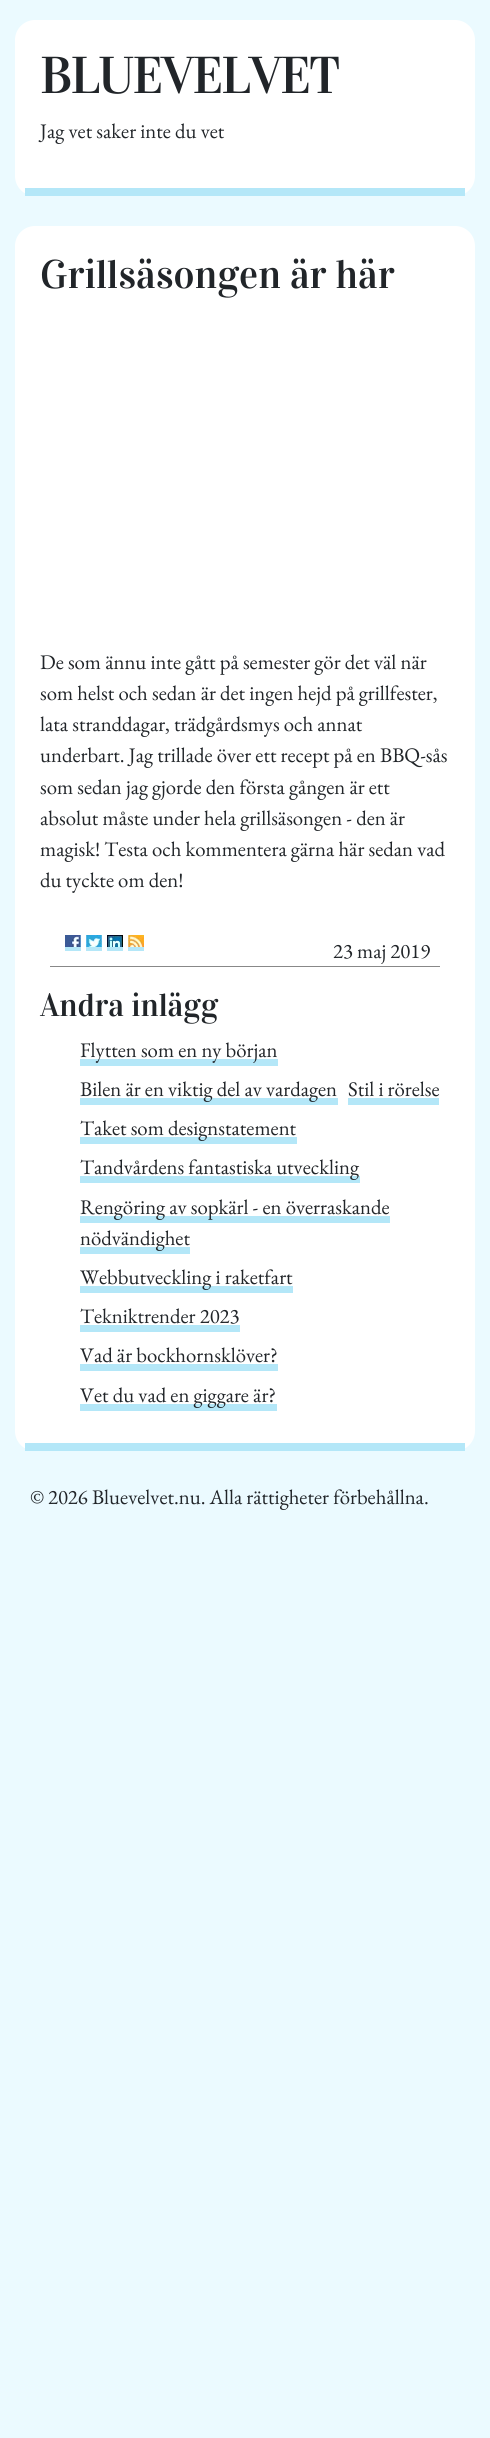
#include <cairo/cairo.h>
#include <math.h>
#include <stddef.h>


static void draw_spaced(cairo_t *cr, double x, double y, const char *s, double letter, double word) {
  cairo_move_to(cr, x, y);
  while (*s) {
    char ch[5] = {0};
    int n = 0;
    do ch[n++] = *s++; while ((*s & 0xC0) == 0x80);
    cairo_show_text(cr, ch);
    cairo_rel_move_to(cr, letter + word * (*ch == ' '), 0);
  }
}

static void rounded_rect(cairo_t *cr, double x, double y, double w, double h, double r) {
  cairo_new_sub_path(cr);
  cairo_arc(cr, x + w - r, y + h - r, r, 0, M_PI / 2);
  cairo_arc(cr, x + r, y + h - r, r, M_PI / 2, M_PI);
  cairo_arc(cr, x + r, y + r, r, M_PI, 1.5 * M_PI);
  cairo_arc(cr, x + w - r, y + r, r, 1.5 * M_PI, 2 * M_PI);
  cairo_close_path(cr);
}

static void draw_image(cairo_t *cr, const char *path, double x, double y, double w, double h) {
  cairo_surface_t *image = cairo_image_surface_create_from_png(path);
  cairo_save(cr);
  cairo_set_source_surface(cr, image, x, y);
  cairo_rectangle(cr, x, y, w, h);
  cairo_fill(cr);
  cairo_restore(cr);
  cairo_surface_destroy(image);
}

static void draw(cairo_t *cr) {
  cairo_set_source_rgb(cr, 235 / 255.0, 250 / 255.0, 1);
  cairo_paint(cr);
  cairo_set_source_rgb(cr, 1, 1, 1);
  rounded_rect(cr, 15, 20, 460, 176, 20);
  cairo_fill(cr);
  cairo_set_source_rgb(cr, 180 / 255.0, 231 / 255.0, 248 / 255.0);
  cairo_rectangle(cr, 25, 188, 440, 8);
  cairo_fill(cr);
  cairo_set_source_rgb(cr, 1, 1, 1);
  rounded_rect(cr, 15, 226, 460, 1225, 20);
  cairo_fill(cr);
  cairo_set_source_rgb(cr, 180 / 255.0, 231 / 255.0, 248 / 255.0);
  cairo_rectangle(cr, 25, 1443, 440, 8);
  cairo_fill(cr);
  draw_image(cr, "images/1.png", 65, 935, 16, 12);
  cairo_rectangle(cr, 65, 947, 16, 4);
  cairo_fill(cr);
  draw_image(cr, "images/2.png", 86, 935, 16, 12);
  cairo_rectangle(cr, 86, 947, 16, 4);
  cairo_fill(cr);
  draw_image(cr, "images/3.png", 107, 935, 16, 12);
  cairo_rectangle(cr, 107, 947, 16, 4);
  cairo_fill(cr);
  draw_image(cr, "images/4.png", 128, 935, 16, 12);
  cairo_rectangle(cr, 128, 947, 16, 4);
  cairo_fill(cr);
  cairo_set_source_rgb(cr, 136 / 255.0, 136 / 255.0, 136 / 255.0);
  cairo_rectangle(cr, 50, 966, 390, 1);
  cairo_fill(cr);
  cairo_set_source_rgb(cr, 180 / 255.0, 231 / 255.0, 248 / 255.0);
  cairo_rectangle(cr, 80, 1059, 198, 7);
  cairo_fill(cr);
  cairo_rectangle(cr, 80, 1098, 258, 7);
  cairo_fill(cr);
  cairo_rectangle(cr, 348, 1098, 91, 7);
  cairo_fill(cr);
  cairo_rectangle(cr, 80, 1137, 217, 7);
  cairo_fill(cr);
  cairo_rectangle(cr, 80, 1176, 280, 7);
  cairo_fill(cr);
  cairo_rectangle(cr, 80, 1216, 310, 7);
  cairo_fill(cr);
  cairo_rectangle(cr, 80, 1247, 110, 7);
  cairo_fill(cr);
  cairo_rectangle(cr, 80, 1286, 213, 7);
  cairo_fill(cr);
  cairo_rectangle(cr, 80, 1325, 160, 7);
  cairo_fill(cr);
  cairo_rectangle(cr, 80, 1364, 198, 7);
  cairo_fill(cr);
  cairo_rectangle(cr, 80, 1404, 197, 7);
  cairo_fill(cr);
  cairo_select_font_face(cr, "Vidaloka", CAIRO_FONT_SLANT_NORMAL, CAIRO_FONT_WEIGHT_NORMAL);
  cairo_set_font_size(cr, 52);
  cairo_set_source_rgb(cr, 33 / 255.0, 37 / 255.0, 41 / 255.0);
  draw_spaced(cr, 40, 93, "BLUEVELVET", -2, 0);
  cairo_select_font_face(cr, "EB Garamond", CAIRO_FONT_SLANT_NORMAL, CAIRO_FONT_WEIGHT_NORMAL);
  cairo_set_font_size(cr, 20.75);
  cairo_move_to(cr, 40, 138);
  cairo_show_text(cr, "Jag vet saker inte du vet");
  cairo_select_font_face(cr, "Vidaloka", CAIRO_FONT_SLANT_NORMAL, CAIRO_FONT_WEIGHT_NORMAL);
  cairo_set_font_size(cr, 40);
  cairo_move_to(cr, 40, 288);
  cairo_show_text(cr, "Grillsäsongen är här");
  cairo_select_font_face(cr, "EB Garamond", CAIRO_FONT_SLANT_NORMAL, CAIRO_FONT_WEIGHT_NORMAL);
  cairo_set_font_size(cr, 20.75);
  cairo_move_to(cr, 40, 669);
  cairo_show_text(cr, "De som ännu inte gått på semester gör det väl när");
  cairo_move_to(cr, 40, 700);
  cairo_show_text(cr, "som helst och sedan är det ingen hejd på grillfester,");
  cairo_move_to(cr, 40, 731);
  cairo_show_text(cr, "lata stranddagar, trädgårdsmys och annat");
  cairo_move_to(cr, 40, 762);
  cairo_show_text(cr, "underbart. Jag trillade över ett recept på en BBQ-sås");
  cairo_move_to(cr, 40, 794);
  cairo_show_text(cr, "som sedan jag gjorde den första gången är ett");
  cairo_move_to(cr, 40, 825);
  cairo_show_text(cr, "absolut måste under hela grillsäsongen - den är");
  cairo_move_to(cr, 40, 856);
  cairo_show_text(cr, "magisk! Testa och kommentera gärna här sedan vad");
  cairo_move_to(cr, 40, 887);
  cairo_show_text(cr, "du tyckte om den!");
  cairo_move_to(cr, 333, 958);
  cairo_show_text(cr, "23 maj 2019");
  cairo_select_font_face(cr, "Vidaloka", CAIRO_FONT_SLANT_NORMAL, CAIRO_FONT_WEIGHT_NORMAL);
  cairo_set_font_size(cr, 32);
  cairo_move_to(cr, 40, 1016);
  cairo_show_text(cr, "Andra inlägg");
  cairo_select_font_face(cr, "EB Garamond", CAIRO_FONT_SLANT_NORMAL, CAIRO_FONT_WEIGHT_NORMAL);
  cairo_set_font_size(cr, 20.75);
  cairo_move_to(cr, 80, 1057);
  cairo_show_text(cr, "Flytten som en ny början");
  cairo_move_to(cr, 80, 1096);
  cairo_show_text(cr, "Bilen är en viktig del av vardagen");
  cairo_move_to(cr, 348, 1096);
  cairo_show_text(cr, "Stil i rörelse");
  cairo_move_to(cr, 80, 1135);
  cairo_show_text(cr, "Taket som designstatement");
  cairo_move_to(cr, 80, 1174);
  cairo_show_text(cr, "Tandvårdens fantastiska utveckling");
  cairo_move_to(cr, 80, 1214);
  cairo_show_text(cr, "Rengöring av sopkärl - en överraskande");
  cairo_move_to(cr, 80, 1245);
  cairo_show_text(cr, "nödvändighet");
  cairo_move_to(cr, 80, 1284);
  cairo_show_text(cr, "Webbutveckling i raketfart");
  cairo_move_to(cr, 80, 1323);
  cairo_show_text(cr, "Tekniktrender 2023");
  cairo_move_to(cr, 80, 1362);
  cairo_show_text(cr, "Vad är bockhornsklöver?");
  cairo_move_to(cr, 80, 1402);
  cairo_show_text(cr, "Vet du vad en giggare är?");
  cairo_move_to(cr, 30, 1504);
  cairo_show_text(cr, "© 2026 Bluevelvet.nu. Alla rättigheter förbehållna.");
}

int main(void) {
  cairo_surface_t *surface = cairo_image_surface_create(CAIRO_FORMAT_RGB24, 490, 2438);
  cairo_t *cr = cairo_create(surface);
  cairo_font_options_t *options = cairo_font_options_create();
  cairo_font_options_set_hint_metrics(options, CAIRO_HINT_METRICS_OFF);
  cairo_font_options_set_hint_style(options, CAIRO_HINT_STYLE_NONE);
  cairo_set_font_options(cr, options);
  cairo_set_miter_limit(cr, 4);
  draw(cr);
  cairo_surface_write_to_png(surface, "out.png");
  cairo_font_options_destroy(options);
  cairo_destroy(cr);
  cairo_surface_destroy(surface);
  return 0;
}
